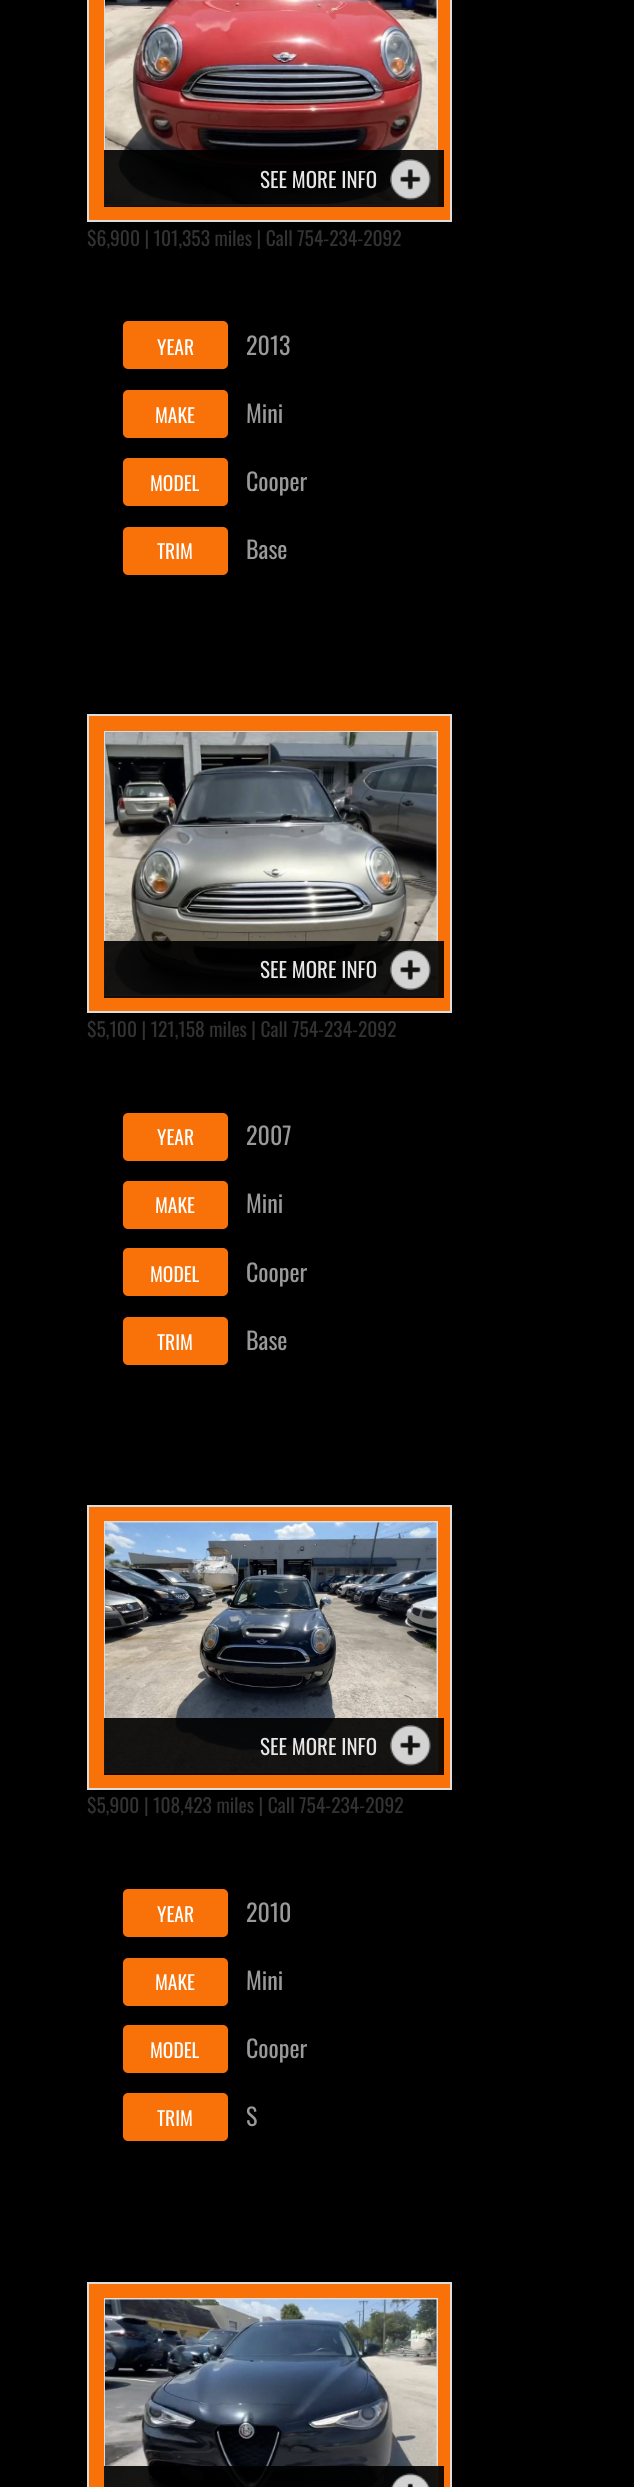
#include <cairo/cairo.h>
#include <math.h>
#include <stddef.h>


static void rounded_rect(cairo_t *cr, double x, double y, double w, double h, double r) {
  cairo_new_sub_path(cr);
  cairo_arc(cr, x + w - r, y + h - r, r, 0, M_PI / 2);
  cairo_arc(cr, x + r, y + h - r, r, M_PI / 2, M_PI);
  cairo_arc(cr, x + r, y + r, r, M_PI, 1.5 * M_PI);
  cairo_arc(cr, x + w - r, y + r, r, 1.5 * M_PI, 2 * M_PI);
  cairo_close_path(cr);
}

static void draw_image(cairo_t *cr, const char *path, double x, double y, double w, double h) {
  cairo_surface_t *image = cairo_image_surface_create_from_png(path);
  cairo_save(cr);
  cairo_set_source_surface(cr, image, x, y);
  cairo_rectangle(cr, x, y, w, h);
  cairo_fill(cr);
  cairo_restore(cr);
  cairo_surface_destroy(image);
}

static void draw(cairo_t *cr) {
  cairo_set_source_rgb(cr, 0, 0, 0);
  cairo_paint(cr);
  cairo_set_source_rgb(cr, 249 / 255.0, 113 / 255.0, 9 / 255.0);
  cairo_rectangle(cr, 88, -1, 363, 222);
  cairo_fill_preserve(cr);
  cairo_set_source_rgb(cr, 221 / 255.0, 221 / 255.0, 221 / 255.0);
  cairo_stroke(cr);
  cairo_rectangle(cr, 105, -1, 332, 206);
  cairo_stroke(cr);
  draw_image(cr, "images/1.png", 105, 0, 332, 204);
  cairo_set_source_rgba(cr, 0, 0, 0, 0.9);
  cairo_rectangle(cr, 104, 150, 340, 57);
  cairo_fill(cr);
  draw_image(cr, "images/2.png", 390, 159, 41, 41);
  cairo_set_source_rgb(cr, 249 / 255.0, 113 / 255.0, 9 / 255.0);
  rounded_rect(cr, 123, 321, 105, 48, 5);
  cairo_fill(cr);
  rounded_rect(cr, 123, 390, 105, 48, 5);
  cairo_fill(cr);
  rounded_rect(cr, 123, 458, 105, 48, 5);
  cairo_fill(cr);
  rounded_rect(cr, 123, 527, 105, 48, 5);
  cairo_fill(cr);
  cairo_rectangle(cr, 88, 715, 363, 297);
  cairo_fill_preserve(cr);
  cairo_set_source_rgb(cr, 221 / 255.0, 221 / 255.0, 221 / 255.0);
  cairo_stroke(cr);
  cairo_rectangle(cr, 105, 732, 332, 263);
  cairo_stroke(cr);
  draw_image(cr, "images/3.png", 105, 732, 332, 263);
  cairo_set_source_rgba(cr, 0, 0, 0, 0.9);
  cairo_rectangle(cr, 104, 941, 340, 57);
  cairo_fill(cr);
  draw_image(cr, "images/4.png", 390, 949, 41, 41);
  cairo_set_source_rgb(cr, 249 / 255.0, 113 / 255.0, 9 / 255.0);
  rounded_rect(cr, 123, 1113, 105, 48, 5);
  cairo_fill(cr);
  rounded_rect(cr, 123, 1181, 105, 48, 5);
  cairo_fill(cr);
  rounded_rect(cr, 123, 1248, 105, 48, 5);
  cairo_fill(cr);
  rounded_rect(cr, 123, 1317, 105, 48, 5);
  cairo_fill(cr);
  cairo_rectangle(cr, 88, 1506, 363, 283);
  cairo_fill_preserve(cr);
  cairo_set_source_rgb(cr, 221 / 255.0, 221 / 255.0, 221 / 255.0);
  cairo_stroke(cr);
  cairo_rectangle(cr, 105, 1522, 332, 250);
  cairo_stroke(cr);
  draw_image(cr, "images/5.png", 105, 1522, 332, 250);
  cairo_set_source_rgba(cr, 0, 0, 0, 0.9);
  cairo_rectangle(cr, 104, 1718, 340, 57);
  cairo_fill(cr);
  draw_image(cr, "images/6.png", 390, 1725, 41, 41);
  cairo_set_source_rgb(cr, 249 / 255.0, 113 / 255.0, 9 / 255.0);
  rounded_rect(cr, 123, 1889, 105, 48, 5);
  cairo_fill(cr);
  rounded_rect(cr, 123, 1958, 105, 48, 5);
  cairo_fill(cr);
  rounded_rect(cr, 123, 2025, 105, 48, 5);
  cairo_fill(cr);
  rounded_rect(cr, 123, 2093, 105, 48, 5);
  cairo_fill(cr);
  cairo_rectangle(cr, 88, 2283, 363, 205);
  cairo_fill_preserve(cr);
  cairo_set_source_rgb(cr, 221 / 255.0, 221 / 255.0, 221 / 255.0);
  cairo_stroke(cr);
  cairo_rectangle(cr, 105, 2299, 332, 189);
  cairo_stroke(cr);
  draw_image(cr, "images/7.png", 105, 2299, 332, 188);
  cairo_set_source_rgba(cr, 0, 0, 0, 0.9);
  cairo_rectangle(cr, 104, 2466, 340, 21);
  cairo_fill(cr);
  draw_image(cr, "images/8.png", 391, 2473, 39, 14);
  cairo_select_font_face(cr, "Oswald", CAIRO_FONT_SLANT_NORMAL, CAIRO_FONT_WEIGHT_NORMAL);
  cairo_set_font_size(cr, 21);
  cairo_set_source_rgb(cr, 230 / 255.0, 230 / 255.0, 230 / 255.0);
  cairo_move_to(cr, 260, 188);
  cairo_show_text(cr, "SEE MORE INFO");
  cairo_set_font_size(cr, 19.5);
  cairo_set_source_rgb(cr, 51 / 255.0, 51 / 255.0, 51 / 255.0);
  cairo_move_to(cr, 87, 246);
  cairo_show_text(cr, "$6,900 | 101,353 miles | Call 754-234-2092");
  cairo_set_source_rgb(cr, 1, 1, 1);
  cairo_move_to(cr, 157, 355);
  cairo_show_text(cr, "YEAR");
  cairo_set_font_size(cr, 24);
  cairo_set_source_rgb(cr, 153 / 255.0, 153 / 255.0, 153 / 255.0);
  cairo_move_to(cr, 246, 355);
  cairo_show_text(cr, "2013");
  cairo_set_font_size(cr, 19.5);
  cairo_set_source_rgb(cr, 1, 1, 1);
  cairo_move_to(cr, 155, 423);
  cairo_show_text(cr, "MAKE");
  cairo_set_font_size(cr, 24);
  cairo_set_source_rgb(cr, 153 / 255.0, 153 / 255.0, 153 / 255.0);
  cairo_move_to(cr, 246, 423);
  cairo_show_text(cr, "Mini");
  cairo_set_font_size(cr, 19.5);
  cairo_set_source_rgb(cr, 1, 1, 1);
  cairo_move_to(cr, 150, 491);
  cairo_show_text(cr, "MODEL");
  cairo_set_font_size(cr, 24);
  cairo_set_source_rgb(cr, 153 / 255.0, 153 / 255.0, 153 / 255.0);
  cairo_move_to(cr, 246, 491);
  cairo_show_text(cr, "Cooper");
  cairo_set_font_size(cr, 19.5);
  cairo_set_source_rgb(cr, 1, 1, 1);
  cairo_move_to(cr, 157, 559);
  cairo_show_text(cr, "TRIM");
  cairo_set_font_size(cr, 24);
  cairo_set_source_rgb(cr, 153 / 255.0, 153 / 255.0, 153 / 255.0);
  cairo_move_to(cr, 246, 559);
  cairo_show_text(cr, "Base");
  cairo_set_font_size(cr, 21);
  cairo_set_source_rgb(cr, 230 / 255.0, 230 / 255.0, 230 / 255.0);
  cairo_move_to(cr, 260, 978);
  cairo_show_text(cr, "SEE MORE INFO");
  cairo_set_font_size(cr, 19.5);
  cairo_set_source_rgb(cr, 51 / 255.0, 51 / 255.0, 51 / 255.0);
  cairo_move_to(cr, 87, 1037);
  cairo_show_text(cr, "$5,100 | 121,158 miles | Call 754-234-2092");
  cairo_set_source_rgb(cr, 1, 1, 1);
  cairo_move_to(cr, 157, 1145);
  cairo_show_text(cr, "YEAR");
  cairo_set_font_size(cr, 24);
  cairo_set_source_rgb(cr, 153 / 255.0, 153 / 255.0, 153 / 255.0);
  cairo_move_to(cr, 246, 1145);
  cairo_show_text(cr, "2007");
  cairo_set_font_size(cr, 19.5);
  cairo_set_source_rgb(cr, 1, 1, 1);
  cairo_move_to(cr, 155, 1213);
  cairo_show_text(cr, "MAKE");
  cairo_set_font_size(cr, 24);
  cairo_set_source_rgb(cr, 153 / 255.0, 153 / 255.0, 153 / 255.0);
  cairo_move_to(cr, 246, 1213);
  cairo_show_text(cr, "Mini");
  cairo_set_font_size(cr, 19.5);
  cairo_set_source_rgb(cr, 1, 1, 1);
  cairo_move_to(cr, 150, 1282);
  cairo_show_text(cr, "MODEL");
  cairo_set_font_size(cr, 24);
  cairo_set_source_rgb(cr, 153 / 255.0, 153 / 255.0, 153 / 255.0);
  cairo_move_to(cr, 246, 1282);
  cairo_show_text(cr, "Cooper");
  cairo_set_font_size(cr, 19.5);
  cairo_set_source_rgb(cr, 1, 1, 1);
  cairo_move_to(cr, 157, 1350);
  cairo_show_text(cr, "TRIM");
  cairo_set_font_size(cr, 24);
  cairo_set_source_rgb(cr, 153 / 255.0, 153 / 255.0, 153 / 255.0);
  cairo_move_to(cr, 246, 1350);
  cairo_show_text(cr, "Base");
  cairo_set_font_size(cr, 21);
  cairo_set_source_rgb(cr, 230 / 255.0, 230 / 255.0, 230 / 255.0);
  cairo_move_to(cr, 260, 1755);
  cairo_show_text(cr, "SEE MORE INFO");
  cairo_set_font_size(cr, 19.5);
  cairo_set_source_rgb(cr, 51 / 255.0, 51 / 255.0, 51 / 255.0);
  cairo_move_to(cr, 87, 1813);
  cairo_show_text(cr, "$5,900 | 108,423 miles | Call 754-234-2092");
  cairo_set_source_rgb(cr, 1, 1, 1);
  cairo_move_to(cr, 157, 1922);
  cairo_show_text(cr, "YEAR");
  cairo_set_font_size(cr, 24);
  cairo_set_source_rgb(cr, 153 / 255.0, 153 / 255.0, 153 / 255.0);
  cairo_move_to(cr, 246, 1922);
  cairo_show_text(cr, "2010");
  cairo_set_font_size(cr, 19.5);
  cairo_set_source_rgb(cr, 1, 1, 1);
  cairo_move_to(cr, 155, 1990);
  cairo_show_text(cr, "MAKE");
  cairo_set_font_size(cr, 24);
  cairo_set_source_rgb(cr, 153 / 255.0, 153 / 255.0, 153 / 255.0);
  cairo_move_to(cr, 246, 1990);
  cairo_show_text(cr, "Mini");
  cairo_set_font_size(cr, 19.5);
  cairo_set_source_rgb(cr, 1, 1, 1);
  cairo_move_to(cr, 150, 2058);
  cairo_show_text(cr, "MODEL");
  cairo_set_font_size(cr, 24);
  cairo_set_source_rgb(cr, 153 / 255.0, 153 / 255.0, 153 / 255.0);
  cairo_move_to(cr, 246, 2058);
  cairo_show_text(cr, "Cooper");
  cairo_set_font_size(cr, 19.5);
  cairo_set_source_rgb(cr, 1, 1, 1);
  cairo_move_to(cr, 157, 2126);
  cairo_show_text(cr, "TRIM");
  cairo_set_font_size(cr, 24);
  cairo_set_source_rgb(cr, 153 / 255.0, 153 / 255.0, 153 / 255.0);
  cairo_move_to(cr, 246, 2126);
  cairo_show_text(cr, "S");
}

int main(void) {
  cairo_surface_t *surface = cairo_image_surface_create(CAIRO_FORMAT_RGB24, 634, 2487);
  cairo_t *cr = cairo_create(surface);
  cairo_font_options_t *options = cairo_font_options_create();
  cairo_font_options_set_hint_metrics(options, CAIRO_HINT_METRICS_OFF);
  cairo_font_options_set_hint_style(options, CAIRO_HINT_STYLE_NONE);
  cairo_set_font_options(cr, options);
  cairo_set_miter_limit(cr, 4);
  draw(cr);
  cairo_surface_write_to_png(surface, "out.png");
  cairo_font_options_destroy(options);
  cairo_destroy(cr);
  cairo_surface_destroy(surface);
  return 0;
}
